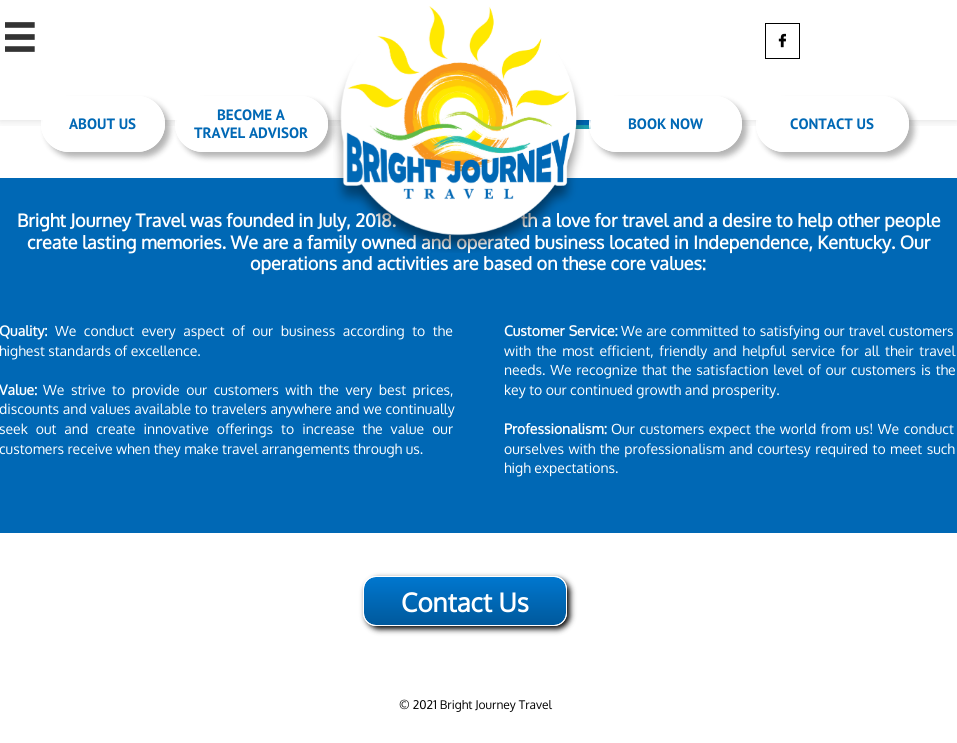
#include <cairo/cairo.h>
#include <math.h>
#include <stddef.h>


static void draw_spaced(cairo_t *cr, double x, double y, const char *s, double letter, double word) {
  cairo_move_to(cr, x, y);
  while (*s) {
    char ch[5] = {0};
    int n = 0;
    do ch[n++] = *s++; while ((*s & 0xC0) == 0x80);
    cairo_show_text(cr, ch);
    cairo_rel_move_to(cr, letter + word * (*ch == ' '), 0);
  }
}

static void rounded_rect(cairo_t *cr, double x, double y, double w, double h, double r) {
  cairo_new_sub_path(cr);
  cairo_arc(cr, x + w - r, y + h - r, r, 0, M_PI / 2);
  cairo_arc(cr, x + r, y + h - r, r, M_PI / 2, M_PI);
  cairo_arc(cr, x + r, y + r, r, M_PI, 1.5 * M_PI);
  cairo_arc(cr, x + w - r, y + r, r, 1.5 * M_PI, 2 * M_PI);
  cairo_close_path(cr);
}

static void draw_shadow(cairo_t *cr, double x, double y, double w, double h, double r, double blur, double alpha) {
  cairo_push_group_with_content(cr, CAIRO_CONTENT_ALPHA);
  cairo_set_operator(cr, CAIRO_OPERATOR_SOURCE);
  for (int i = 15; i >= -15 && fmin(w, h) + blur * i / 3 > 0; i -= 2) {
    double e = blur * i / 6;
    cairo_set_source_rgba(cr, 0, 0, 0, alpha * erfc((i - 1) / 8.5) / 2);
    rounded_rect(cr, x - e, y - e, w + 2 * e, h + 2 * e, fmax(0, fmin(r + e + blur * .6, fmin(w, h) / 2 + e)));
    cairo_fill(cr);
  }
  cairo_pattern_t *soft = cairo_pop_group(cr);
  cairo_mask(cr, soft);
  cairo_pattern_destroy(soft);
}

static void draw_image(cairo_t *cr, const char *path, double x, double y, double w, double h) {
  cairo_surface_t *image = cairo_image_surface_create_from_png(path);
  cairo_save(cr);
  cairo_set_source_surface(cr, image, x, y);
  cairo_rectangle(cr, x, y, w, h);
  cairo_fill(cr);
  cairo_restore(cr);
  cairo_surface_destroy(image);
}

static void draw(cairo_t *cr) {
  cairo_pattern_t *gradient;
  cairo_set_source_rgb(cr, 1, 1, 1);
  cairo_paint(cr);
  cairo_set_source_rgb(cr, 0, 104 / 255.0, 181 / 255.0);
  cairo_new_path(cr);
  cairo_move_to(cr, 486, 93);
  cairo_line_to(cr, 684, 93);
  cairo_curve_to(cr, 694, 93, 702, 101, 702, 111);
  cairo_curve_to(cr, 702, 119, 694, 125, 684, 125);
  cairo_line_to(cr, 486, 125);
  cairo_curve_to(cr, 476, 125, 468, 119, 468, 111);
  cairo_curve_to(cr, 468, 101, 476, 93, 486, 93);
  cairo_close_path(cr);
  cairo_fill(cr);
  cairo_set_source_rgb(cr, 1, 1, 1);
  cairo_rectangle(cr, 468, 93, 234, 27);
  cairo_fill(cr);
  cairo_set_source_rgb(cr, 30 / 255.0, 158 / 255.0, 174 / 255.0);
  cairo_rectangle(cr, 575, 125, 16, 4);
  cairo_fill(cr);
  cairo_save(cr);
  cairo_rectangle(cr, 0, 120, 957, 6);
  cairo_clip(cr);
  cairo_set_source_rgb(cr, 0, 0, 0);
  draw_shadow(cr, 0, 0, 957, 120, 0, 5, 0.15);
  cairo_restore(cr);
  draw_image(cr, "images/1.png", 5, 22, 30, 30);
  cairo_rectangle(cr, 765.5, 23.5, 34, 35);
  cairo_set_source_rgb(cr, 0, 0, 0);
  cairo_set_line_width(cr, 1);
  cairo_stroke(cr);
  draw_image(cr, "images/3.png", 778, 33, 8, 15);
  cairo_set_source_rgb(cr, 1, 1, 1);
  rounded_rect(cr, 42, 97, 122, 54, 27);
  cairo_fill(cr);
  cairo_save(cr);
  cairo_set_fill_rule(cr, CAIRO_FILL_RULE_EVEN_ODD);
  cairo_new_path(cr);
  cairo_move_to(cr, 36, 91);
  cairo_line_to(cr, 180, 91);
  cairo_line_to(cr, 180, 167);
  cairo_line_to(cr, 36, 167);
  cairo_close_path(cr);
  cairo_move_to(cr, 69, 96);
  cairo_line_to(cr, 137, 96);
  cairo_curve_to(cr, 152.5, 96, 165, 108.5, 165, 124);
  cairo_curve_to(cr, 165, 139.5, 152.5, 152, 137, 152);
  cairo_line_to(cr, 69, 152);
  cairo_curve_to(cr, 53.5, 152, 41, 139.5, 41, 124);
  cairo_curve_to(cr, 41, 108.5, 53.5, 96, 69, 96);
  cairo_close_path(cr);
  cairo_clip(cr);
  cairo_set_source_rgb(cr, 0, 0, 0);
  draw_shadow(cr, 46, 101, 124, 56, 28, 3, 0.3);
  cairo_restore(cr);
  rounded_rect(cr, 41.5, 96.5, 123, 55, 27.5);
  cairo_stroke(cr);
  rounded_rect(cr, 176, 97, 151, 54, 27);
  cairo_fill(cr);
  rounded_rect(cr, 590, 97, 151, 54, 27);
  cairo_fill(cr);
  cairo_save(cr);
  cairo_set_fill_rule(cr, CAIRO_FILL_RULE_EVEN_ODD);
  cairo_new_path(cr);
  cairo_move_to(cr, 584, 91);
  cairo_line_to(cr, 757, 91);
  cairo_line_to(cr, 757, 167);
  cairo_line_to(cr, 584, 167);
  cairo_close_path(cr);
  cairo_move_to(cr, 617, 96);
  cairo_line_to(cr, 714, 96);
  cairo_curve_to(cr, 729.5, 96, 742, 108.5, 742, 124);
  cairo_curve_to(cr, 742, 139.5, 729.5, 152, 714, 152);
  cairo_line_to(cr, 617, 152);
  cairo_curve_to(cr, 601.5, 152, 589, 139.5, 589, 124);
  cairo_curve_to(cr, 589, 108.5, 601.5, 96, 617, 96);
  cairo_close_path(cr);
  cairo_clip(cr);
  cairo_set_source_rgb(cr, 0, 0, 0);
  draw_shadow(cr, 594, 101, 153, 56, 28, 3, 0.3);
  cairo_restore(cr);
  rounded_rect(cr, 589.5, 96.5, 152, 55, 27.5);
  cairo_stroke(cr);
  rounded_rect(cr, 757, 97, 151, 54, 27);
  cairo_fill(cr);
  cairo_save(cr);
  cairo_set_fill_rule(cr, CAIRO_FILL_RULE_EVEN_ODD);
  cairo_new_path(cr);
  cairo_move_to(cr, 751, 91);
  cairo_line_to(cr, 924, 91);
  cairo_line_to(cr, 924, 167);
  cairo_line_to(cr, 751, 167);
  cairo_close_path(cr);
  cairo_move_to(cr, 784, 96);
  cairo_line_to(cr, 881, 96);
  cairo_curve_to(cr, 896.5, 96, 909, 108.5, 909, 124);
  cairo_curve_to(cr, 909, 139.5, 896.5, 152, 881, 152);
  cairo_line_to(cr, 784, 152);
  cairo_curve_to(cr, 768.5, 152, 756, 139.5, 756, 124);
  cairo_curve_to(cr, 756, 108.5, 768.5, 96, 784, 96);
  cairo_close_path(cr);
  cairo_clip(cr);
  cairo_set_source_rgb(cr, 0, 0, 0);
  draw_shadow(cr, 761, 101, 153, 56, 28, 3, 0.3);
  cairo_restore(cr);
  rounded_rect(cr, 756.5, 96.5, 152, 55, 27.5);
  cairo_stroke(cr);
  cairo_set_source_rgb(cr, 0, 104 / 255.0, 181 / 255.0);
  cairo_rectangle(cr, 0, 178, 957, 355);
  cairo_fill(cr);
  gradient = cairo_pattern_create_linear(465, 577, 465, 625);
  cairo_pattern_add_color_stop_rgba(gradient, 0, 0, 119 / 255.0, 207 / 255.0, 1);
  cairo_pattern_add_color_stop_rgba(gradient, 1, 0, 89 / 255.0, 156 / 255.0, 1);
  cairo_set_source(cr, gradient);
  cairo_pattern_destroy(gradient);
  rounded_rect(cr, 364, 577, 202, 48, 12);
  cairo_fill(cr);
  cairo_save(cr);
  cairo_set_fill_rule(cr, CAIRO_FILL_RULE_EVEN_ODD);
  cairo_new_path(cr);
  cairo_move_to(cr, 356, 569);
  cairo_line_to(cr, 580, 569);
  cairo_line_to(cr, 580, 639);
  cairo_line_to(cr, 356, 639);
  cairo_close_path(cr);
  cairo_move_to(cr, 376, 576);
  cairo_line_to(cr, 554, 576);
  cairo_curve_to(cr, 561, 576, 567, 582, 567, 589);
  cairo_line_to(cr, 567, 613);
  cairo_curve_to(cr, 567, 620, 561, 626, 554, 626);
  cairo_line_to(cr, 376, 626);
  cairo_curve_to(cr, 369, 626, 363, 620, 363, 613);
  cairo_line_to(cr, 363, 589);
  cairo_curve_to(cr, 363, 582, 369, 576, 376, 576);
  cairo_close_path(cr);
  cairo_clip(cr);
  cairo_set_source_rgb(cr, 0, 0, 0);
  draw_shadow(cr, 366, 579, 204, 50, 13, 3, 1);
  cairo_restore(cr);
  rounded_rect(cr, 363.5, 576.5, 203, 49, 12.5);
  cairo_set_source_rgb(cr, 1, 1, 1);
  cairo_stroke(cr);
  cairo_select_font_face(cr, "PT Sans", CAIRO_FONT_SLANT_NORMAL, CAIRO_FONT_WEIGHT_BOLD);
  cairo_set_font_size(cr, 15);
  cairo_set_source_rgb(cr, 0, 104 / 255.0, 181 / 255.0);
  cairo_move_to(cr, 69, 129);
  cairo_show_text(cr, "ABOUT US");
  cairo_move_to(cr, 628, 129);
  cairo_show_text(cr, "BOOK NOW");
  cairo_move_to(cr, 790, 129);
  cairo_show_text(cr, "CONTACT US");
  cairo_select_font_face(cr, "Oxygen", CAIRO_FONT_SLANT_NORMAL, CAIRO_FONT_WEIGHT_BOLD);
  cairo_set_font_size(cr, 18);
  cairo_set_source_rgb(cr, 1, 1, 1);
  cairo_move_to(cr, 17, 227);
  cairo_show_text(cr, "Bright Journey Travel was founded in July, 2018.");
  cairo_move_to(cr, 521, 227);
  cairo_show_text(cr, "th a love for travel and a desire to help other people");
  cairo_move_to(cr, 27, 249);
  cairo_show_text(cr, "create lasting memories. We are a family owned and operated business located in Independence, Kentucky. Our");
  draw_image(cr, "images/2.png", 333, 6, 251, 247);
  cairo_save(cr);
  cairo_set_fill_rule(cr, CAIRO_FILL_RULE_EVEN_ODD);
  cairo_new_path(cr);
  cairo_move_to(cr, 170, 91);
  cairo_line_to(cr, 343, 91);
  cairo_line_to(cr, 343, 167);
  cairo_line_to(cr, 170, 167);
  cairo_close_path(cr);
  cairo_move_to(cr, 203, 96);
  cairo_line_to(cr, 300, 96);
  cairo_curve_to(cr, 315.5, 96, 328, 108.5, 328, 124);
  cairo_curve_to(cr, 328, 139.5, 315.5, 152, 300, 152);
  cairo_line_to(cr, 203, 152);
  cairo_curve_to(cr, 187.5, 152, 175, 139.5, 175, 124);
  cairo_curve_to(cr, 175, 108.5, 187.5, 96, 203, 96);
  cairo_close_path(cr);
  cairo_clip(cr);
  cairo_set_source_rgb(cr, 0, 0, 0);
  draw_shadow(cr, 180, 101, 153, 56, 28, 3, 0.3);
  cairo_restore(cr);
  rounded_rect(cr, 175.5, 96.5, 152, 55, 27.5);
  cairo_stroke(cr);
  cairo_select_font_face(cr, "PT Sans", CAIRO_FONT_SLANT_NORMAL, CAIRO_FONT_WEIGHT_BOLD);
  cairo_set_font_size(cr, 15);
  cairo_set_source_rgb(cr, 0, 104 / 255.0, 181 / 255.0);
  cairo_move_to(cr, 194, 138);
  cairo_show_text(cr, "TRAVEL ADVISOR");
  cairo_move_to(cr, 217, 120);
  cairo_show_text(cr, "BECOME A");
  cairo_select_font_face(cr, "Oxygen", CAIRO_FONT_SLANT_NORMAL, CAIRO_FONT_WEIGHT_BOLD);
  cairo_set_font_size(cr, 18);
  cairo_set_source_rgb(cr, 1, 1, 1);
  cairo_move_to(cr, 250, 270);
  cairo_show_text(cr, "operations and activities are based on these core values:");
  cairo_set_font_size(cr, 14);
  cairo_move_to(cr, -1, 336);
  cairo_show_text(cr, "Quality:");
  cairo_select_font_face(cr, "Oxygen", CAIRO_FONT_SLANT_NORMAL, CAIRO_FONT_WEIGHT_NORMAL);
  draw_spaced(cr, 55, 336, "We conduct every aspect of our business according to the", 0, 4);
  cairo_move_to(cr, -1, 356);
  cairo_show_text(cr, "highest standards of excellence.");
  cairo_select_font_face(cr, "Oxygen", CAIRO_FONT_SLANT_NORMAL, CAIRO_FONT_WEIGHT_BOLD);
  cairo_move_to(cr, -1, 395);
  cairo_show_text(cr, "Value:");
  cairo_select_font_face(cr, "Oxygen", CAIRO_FONT_SLANT_NORMAL, CAIRO_FONT_WEIGHT_NORMAL);
  draw_spaced(cr, 43, 395, "We strive to provide our customers with the very best prices,", 0, 3.1);
  draw_spaced(cr, -1, 414, "discounts and values available to travelers anywhere and we continually", 0, 0.25);
  draw_spaced(cr, -1, 434, "seek out and create innovative offerings to increase the value our", 0, 4.5);
  cairo_move_to(cr, -1, 454);
  cairo_show_text(cr, "customers receive when they make travel arrangements through us.");
  cairo_select_font_face(cr, "Oxygen", CAIRO_FONT_SLANT_NORMAL, CAIRO_FONT_WEIGHT_BOLD);
  draw_spaced(cr, 504, 336, "Customer Service:", 0, 0.5);
  cairo_select_font_face(cr, "Oxygen", CAIRO_FONT_SLANT_NORMAL, CAIRO_FONT_WEIGHT_NORMAL);
  draw_spaced(cr, 621, 336, "We are committed to satisfying our travel customers", 0, 0.5);
  draw_spaced(cr, 504, 356, "with the most efficient, friendly and helpful service for all their travel", 0, 2.1);
  draw_spaced(cr, 504, 375, "needs. We recognize that the satisfaction level of our customers is the", 0, 1.25);
  cairo_move_to(cr, 504, 395);
  cairo_show_text(cr, "key to our continued growth and prosperity.");
  cairo_select_font_face(cr, "Oxygen", CAIRO_FONT_SLANT_NORMAL, CAIRO_FONT_WEIGHT_BOLD);
  cairo_move_to(cr, 504, 434);
  cairo_show_text(cr, "Professionalism:");
  cairo_select_font_face(cr, "Oxygen", CAIRO_FONT_SLANT_NORMAL, CAIRO_FONT_WEIGHT_NORMAL);
  draw_spaced(cr, 611, 434, "Our customers expect the world from us! We conduct", 0, 1);
  draw_spaced(cr, 504, 454, "ourselves with the professionalism and courtesy required to meet such", 0, 1);
  cairo_move_to(cr, 504, 473);
  cairo_show_text(cr, "high expectations.");
  cairo_select_font_face(cr, "Oxygen", CAIRO_FONT_SLANT_NORMAL, CAIRO_FONT_WEIGHT_BOLD);
  cairo_set_font_size(cr, 26);
  cairo_move_to(cr, 401, 612);
  cairo_show_text(cr, "Contact Us");
  cairo_select_font_face(cr, "Oxygen", CAIRO_FONT_SLANT_NORMAL, CAIRO_FONT_WEIGHT_NORMAL);
  cairo_set_font_size(cr, 12);
  cairo_set_source_rgb(cr, 0, 0, 0);
  cairo_move_to(cr, 399, 709);
  cairo_show_text(cr, "© 2021 Bright Journey Travel");
}

int main(void) {
  cairo_surface_t *surface = cairo_image_surface_create(CAIRO_FORMAT_RGB24, 957, 743);
  cairo_t *cr = cairo_create(surface);
  cairo_font_options_t *options = cairo_font_options_create();
  cairo_font_options_set_hint_metrics(options, CAIRO_HINT_METRICS_OFF);
  cairo_font_options_set_hint_style(options, CAIRO_HINT_STYLE_NONE);
  cairo_set_font_options(cr, options);
  cairo_set_miter_limit(cr, 4);
  draw(cr);
  cairo_surface_write_to_png(surface, "out.png");
  cairo_font_options_destroy(options);
  cairo_destroy(cr);
  cairo_surface_destroy(surface);
  return 0;
}
